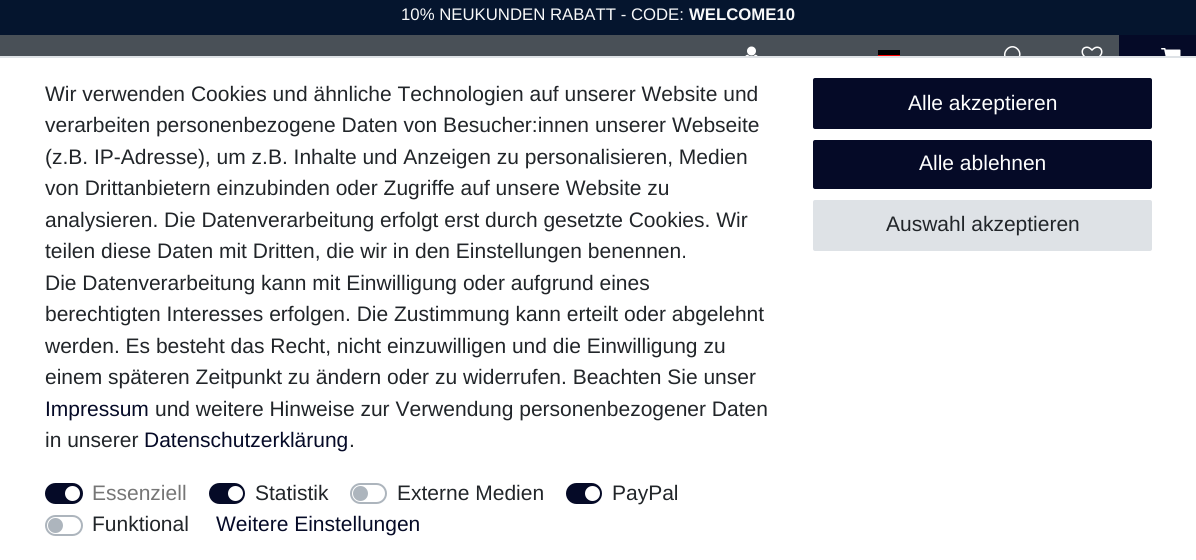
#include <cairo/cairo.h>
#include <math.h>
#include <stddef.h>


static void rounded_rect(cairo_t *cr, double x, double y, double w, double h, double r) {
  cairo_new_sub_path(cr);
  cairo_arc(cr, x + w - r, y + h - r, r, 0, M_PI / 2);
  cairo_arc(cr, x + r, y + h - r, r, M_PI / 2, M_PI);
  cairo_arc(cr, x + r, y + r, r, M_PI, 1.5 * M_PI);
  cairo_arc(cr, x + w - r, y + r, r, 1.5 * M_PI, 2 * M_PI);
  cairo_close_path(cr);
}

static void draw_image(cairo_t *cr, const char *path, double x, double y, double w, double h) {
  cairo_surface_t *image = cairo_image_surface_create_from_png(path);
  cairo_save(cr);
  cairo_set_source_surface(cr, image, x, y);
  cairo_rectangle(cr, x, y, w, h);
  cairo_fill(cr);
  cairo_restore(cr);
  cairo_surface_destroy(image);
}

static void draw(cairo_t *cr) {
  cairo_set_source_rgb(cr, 5 / 255.0, 21 / 255.0, 46 / 255.0);
  cairo_paint(cr);
  cairo_set_source_rgb(cr, 73 / 255.0, 80 / 255.0, 87 / 255.0);
  cairo_rectangle(cr, 0, 35, 1119, 21);
  cairo_fill(cr);
  draw_image(cr, "images/1.png", 745, 46, 13, 10);
  cairo_set_source_rgb(cr, 0, 0, 0);
  cairo_rectangle(cr, 878, 50, 22, 5);
  cairo_fill(cr);
  cairo_set_source_rgb(cr, 1, 0, 0);
  cairo_rectangle(cr, 878, 55, 22, 1);
  cairo_fill(cr);
  cairo_set_source_rgb(cr, 73 / 255.0, 80 / 255.0, 87 / 255.0);
  cairo_new_path(cr);
  cairo_move_to(cr, 1006.5, 60.5);
  cairo_curve_to(cr, 998.5, 52.5, 1010.5, 41, 1018, 48.5);
  cairo_curve_to(cr, 1025.5, 56.5, 1014, 68, 1006.5, 60.5);
  cairo_close_path(cr);
  cairo_fill(cr);
  cairo_new_path(cr);
  cairo_move_to(cr, 1007, 60);
  cairo_curve_to(cr, 1000, 53, 1010.5, 42, 1017.5, 49);
  cairo_curve_to(cr, 1024.5, 56, 1014, 67, 1007, 60);
  cairo_close_path(cr);
  cairo_set_source_rgb(cr, 1, 1, 1);
  cairo_set_line_width(cr, 1.5);
  cairo_stroke(cr);
  draw_image(cr, "images/2.png", 1081, 46, 22, 10);
  cairo_set_source_rgb(cr, 5 / 255.0, 10 / 255.0, 39 / 255.0);
  cairo_rectangle(cr, 1119, 35, 77, 21);
  cairo_fill(cr);
  draw_image(cr, "images/3.png", 1161, 48, 20, 8);
  cairo_set_source_rgb(cr, 1, 1, 1);
  cairo_rectangle(cr, 0, 58, 1196, 502);
  cairo_fill(cr);
  cairo_set_source_rgb(cr, 222 / 255.0, 226 / 255.0, 230 / 255.0);
  cairo_rectangle(cr, 0, 56, 1196, 2);
  cairo_fill(cr);
  cairo_set_source_rgb(cr, 5 / 255.0, 10 / 255.0, 39 / 255.0);
  rounded_rect(cr, 46, 484, 36, 19, 9.5);
  cairo_fill_preserve(cr);
  cairo_set_line_width(cr, 2);
  cairo_stroke(cr);
  cairo_set_source_rgb(cr, 1, 1, 1);
  cairo_arc(cr, 72.5, 493.5, 7.5, 0, 2 * M_PI);
  cairo_fill(cr);
  cairo_set_source_rgb(cr, 5 / 255.0, 10 / 255.0, 39 / 255.0);
  rounded_rect(cr, 210, 484, 34, 19, 9.5);
  cairo_fill_preserve(cr);
  cairo_stroke(cr);
  cairo_set_source_rgb(cr, 1, 1, 1);
  cairo_arc(cr, 235.5, 493.5, 7.5, 0, 2 * M_PI);
  cairo_fill(cr);
  rounded_rect(cr, 351, 484, 35, 19, 9.5);
  cairo_set_source_rgb(cr, 173 / 255.0, 181 / 255.0, 189 / 255.0);
  cairo_stroke(cr);
  cairo_arc(cr, 360.5, 493.5, 7.5, 0, 2 * M_PI);
  cairo_fill(cr);
  cairo_set_source_rgb(cr, 5 / 255.0, 10 / 255.0, 39 / 255.0);
  rounded_rect(cr, 567, 484, 34, 19, 9.5);
  cairo_fill_preserve(cr);
  cairo_stroke(cr);
  cairo_set_source_rgb(cr, 1, 1, 1);
  cairo_arc(cr, 592.5, 493.5, 7.5, 0, 2 * M_PI);
  cairo_fill(cr);
  rounded_rect(cr, 46, 516, 36, 19, 9.5);
  cairo_set_source_rgb(cr, 173 / 255.0, 181 / 255.0, 189 / 255.0);
  cairo_stroke(cr);
  cairo_arc(cr, 55.5, 525.5, 7.5, 0, 2 * M_PI);
  cairo_fill(cr);
  cairo_set_source_rgb(cr, 5 / 255.0, 10 / 255.0, 39 / 255.0);
  rounded_rect(cr, 814, 79, 337, 49, 1);
  cairo_fill_preserve(cr);
  cairo_stroke(cr);
  rounded_rect(cr, 814, 141, 337, 47, 1);
  cairo_fill_preserve(cr);
  cairo_stroke(cr);
  cairo_set_source_rgb(cr, 222 / 255.0, 226 / 255.0, 230 / 255.0);
  rounded_rect(cr, 814, 201, 337, 49, 1);
  cairo_fill_preserve(cr);
  cairo_stroke(cr);
  cairo_select_font_face(cr, "Liberation Sans", CAIRO_FONT_SLANT_NORMAL, CAIRO_FONT_WEIGHT_NORMAL);
  cairo_set_font_size(cr, 16.75);
  cairo_set_source_rgb(cr, 248 / 255.0, 249 / 255.0, 250 / 255.0);
  cairo_move_to(cr, 401, 20);
  cairo_show_text(cr, "10% NEUKUNDEN RABATT - CODE:");
  cairo_select_font_face(cr, "Liberation Sans", CAIRO_FONT_SLANT_NORMAL, CAIRO_FONT_WEIGHT_BOLD);
  cairo_move_to(cr, 689, 20);
  cairo_show_text(cr, "WELCOME10");
  cairo_select_font_face(cr, "Liberation Sans", CAIRO_FONT_SLANT_NORMAL, CAIRO_FONT_WEIGHT_NORMAL);
  cairo_set_font_size(cr, 21);
  cairo_set_source_rgb(cr, 33 / 255.0, 37 / 255.0, 41 / 255.0);
  cairo_move_to(cr, 45, 101);
  cairo_show_text(cr, "Wir verwenden Cookies und ähnliche Technologien auf unserer Website und");
  cairo_move_to(cr, 45, 132);
  cairo_show_text(cr, "verarbeiten personenbezogene Daten von Besucher:innen unserer Webseite");
  cairo_move_to(cr, 45, 164);
  cairo_show_text(cr, "(z.B. IP-Adresse), um z.B. Inhalte und Anzeigen zu personalisieren, Medien");
  cairo_move_to(cr, 45, 195);
  cairo_show_text(cr, "von Drittanbietern einzubinden oder Zugriffe auf unsere Website zu");
  cairo_move_to(cr, 45, 227);
  cairo_show_text(cr, "analysieren. Die Datenverarbeitung erfolgt erst durch gesetzte Cookies. Wir");
  cairo_move_to(cr, 45, 258);
  cairo_show_text(cr, "teilen diese Daten mit Dritten, die wir in den Einstellungen benennen.");
  cairo_move_to(cr, 45, 290);
  cairo_show_text(cr, "Die Datenverarbeitung kann mit Einwilligung oder aufgrund eines");
  cairo_move_to(cr, 45, 321);
  cairo_show_text(cr, "berechtigten Interesses erfolgen. Die Zustimmung kann erteilt oder abgelehnt");
  cairo_move_to(cr, 45, 353);
  cairo_show_text(cr, "werden. Es besteht das Recht, nicht einzuwilligen und die Einwilligung zu");
  cairo_move_to(cr, 45, 384);
  cairo_show_text(cr, "einem späteren Zeitpunkt zu ändern oder zu widerrufen. Beachten Sie unser");
  cairo_set_source_rgb(cr, 5 / 255.0, 10 / 255.0, 39 / 255.0);
  cairo_move_to(cr, 45, 416);
  cairo_show_text(cr, "Impressum");
  cairo_set_source_rgb(cr, 33 / 255.0, 37 / 255.0, 41 / 255.0);
  cairo_move_to(cr, 155, 416);
  cairo_show_text(cr, "und weitere Hinweise zur Verwendung personenbezogener Daten");
  cairo_move_to(cr, 45, 447);
  cairo_show_text(cr, "in unserer");
  cairo_set_source_rgb(cr, 5 / 255.0, 10 / 255.0, 39 / 255.0);
  cairo_move_to(cr, 144, 447);
  cairo_show_text(cr, "Datenschutzerklärung");
  cairo_set_source_rgb(cr, 33 / 255.0, 37 / 255.0, 41 / 255.0);
  cairo_move_to(cr, 349, 447);
  cairo_show_text(cr, ".");
  cairo_set_source_rgb(cr, 118 / 255.0, 118 / 255.0, 118 / 255.0);
  cairo_move_to(cr, 92, 500);
  cairo_show_text(cr, "Essenziell");
  cairo_set_source_rgb(cr, 33 / 255.0, 37 / 255.0, 41 / 255.0);
  cairo_move_to(cr, 255, 500);
  cairo_show_text(cr, "Statistik");
  cairo_move_to(cr, 397, 500);
  cairo_show_text(cr, "Externe Medien");
  cairo_move_to(cr, 612, 500);
  cairo_show_text(cr, "PayPal");
  cairo_move_to(cr, 92, 531);
  cairo_show_text(cr, "Funktional");
  cairo_set_source_rgb(cr, 5 / 255.0, 10 / 255.0, 39 / 255.0);
  cairo_move_to(cr, 216, 531);
  cairo_show_text(cr, "Weitere Einstellungen");
  cairo_set_source_rgb(cr, 1, 1, 1);
  cairo_move_to(cr, 908, 110);
  cairo_show_text(cr, "Alle akzeptieren");
  cairo_move_to(cr, 919, 170);
  cairo_show_text(cr, "Alle ablehnen");
  cairo_set_source_rgb(cr, 33 / 255.0, 37 / 255.0, 41 / 255.0);
  cairo_move_to(cr, 886, 231);
  cairo_show_text(cr, "Auswahl akzeptieren");
}

int main(void) {
  cairo_surface_t *surface = cairo_image_surface_create(CAIRO_FORMAT_RGB24, 1196, 560);
  cairo_t *cr = cairo_create(surface);
  cairo_font_options_t *options = cairo_font_options_create();
  cairo_font_options_set_hint_metrics(options, CAIRO_HINT_METRICS_OFF);
  cairo_font_options_set_hint_style(options, CAIRO_HINT_STYLE_NONE);
  cairo_set_font_options(cr, options);
  cairo_set_miter_limit(cr, 4);
  draw(cr);
  cairo_surface_write_to_png(surface, "out.png");
  cairo_font_options_destroy(options);
  cairo_destroy(cr);
  cairo_surface_destroy(surface);
  return 0;
}
